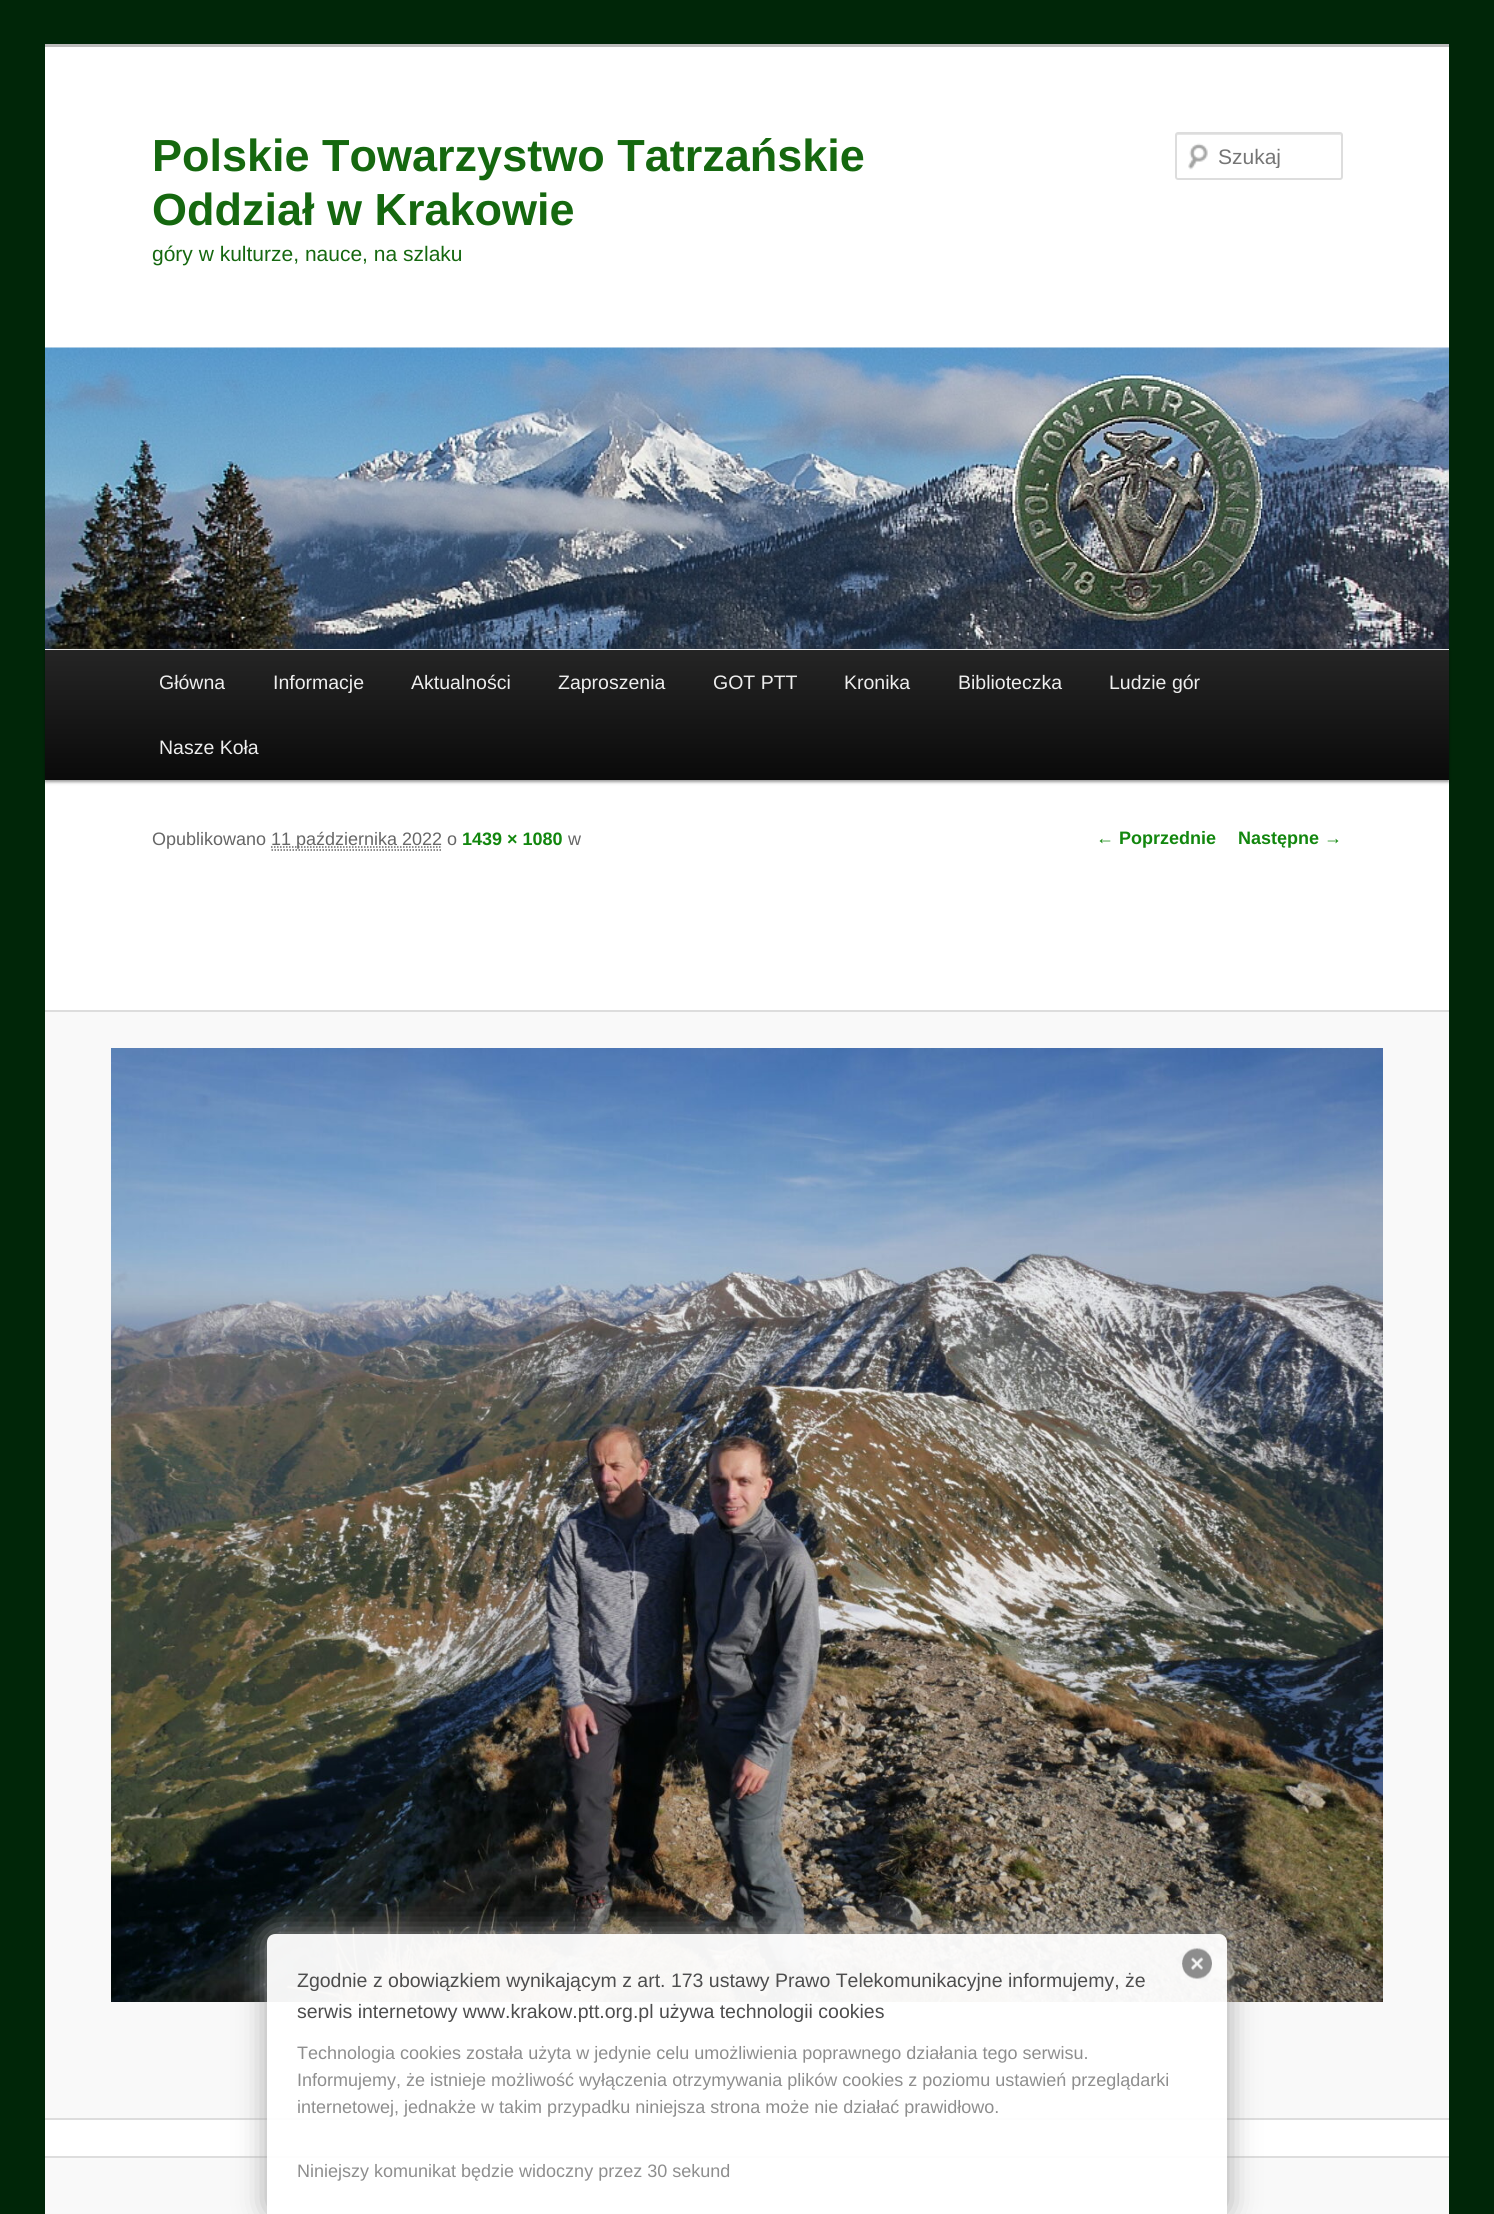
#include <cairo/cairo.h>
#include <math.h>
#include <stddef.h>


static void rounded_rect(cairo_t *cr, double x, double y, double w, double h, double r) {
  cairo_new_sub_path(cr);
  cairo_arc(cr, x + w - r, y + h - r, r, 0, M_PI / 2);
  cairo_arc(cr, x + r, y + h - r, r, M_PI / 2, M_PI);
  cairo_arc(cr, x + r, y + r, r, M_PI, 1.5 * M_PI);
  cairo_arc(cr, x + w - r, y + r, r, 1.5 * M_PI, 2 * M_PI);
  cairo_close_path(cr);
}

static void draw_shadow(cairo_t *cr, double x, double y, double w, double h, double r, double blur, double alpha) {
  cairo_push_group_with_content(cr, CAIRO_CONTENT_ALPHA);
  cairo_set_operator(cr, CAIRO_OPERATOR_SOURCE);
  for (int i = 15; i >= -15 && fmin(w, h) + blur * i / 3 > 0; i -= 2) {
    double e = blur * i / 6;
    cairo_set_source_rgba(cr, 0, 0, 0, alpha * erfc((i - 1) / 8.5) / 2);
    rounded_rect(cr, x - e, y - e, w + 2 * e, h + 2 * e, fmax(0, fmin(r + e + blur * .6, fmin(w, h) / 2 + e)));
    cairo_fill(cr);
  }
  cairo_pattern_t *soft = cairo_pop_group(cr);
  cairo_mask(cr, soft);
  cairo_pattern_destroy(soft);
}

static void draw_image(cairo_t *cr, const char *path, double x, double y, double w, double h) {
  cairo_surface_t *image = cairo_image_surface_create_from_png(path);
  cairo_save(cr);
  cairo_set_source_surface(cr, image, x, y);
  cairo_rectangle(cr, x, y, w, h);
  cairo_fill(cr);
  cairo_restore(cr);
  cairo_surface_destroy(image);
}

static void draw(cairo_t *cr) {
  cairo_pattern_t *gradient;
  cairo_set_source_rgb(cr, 0, 38 / 255.0, 8 / 255.0);
  cairo_paint(cr);
  cairo_set_source_rgb(cr, 1, 1, 1);
  cairo_rectangle(cr, 45, 47, 1404, 2109);
  cairo_fill(cr);
  cairo_set_source_rgb(cr, 187 / 255.0, 187 / 255.0, 187 / 255.0);
  cairo_rectangle(cr, 45, 44, 1404, 3);
  cairo_fill(cr);
  draw_image(cr, "images/1.png", 1188, 143, 20, 27);
  cairo_set_source_rgb(cr, 230 / 255.0, 230 / 255.0, 230 / 255.0);
  cairo_new_path(cr);
  cairo_move_to(cr, 1178, 135);
  cairo_line_to(cr, 1340, 135);
  cairo_line_to(cr, 1341, 136);
  cairo_curve_to(cr, 1341, 135, 1341, 134, 1340, 134);
  cairo_line_to(cr, 1178, 134);
  cairo_curve_to(cr, 1176, 134, 1176, 135, 1176, 136);
  cairo_close_path(cr);
  cairo_fill(cr);
  rounded_rect(cr, 1176, 133, 166, 46, 2);
  cairo_set_source_rgb(cr, 221 / 255.0, 221 / 255.0, 221 / 255.0);
  cairo_stroke(cr);
  cairo_set_source_rgb(cr, 0, 0, 0);
  draw_shadow(cr, 45, 651, 1404, 131, 0, 1.5, 0.4);
  draw_image(cr, "images/2.png", 45, 347, 1404, 302);
  gradient = cairo_pattern_create_linear(747, 649, 747, 780);
  cairo_pattern_add_color_stop_rgba(gradient, 0, 37 / 255.0, 37 / 255.0, 37 / 255.0, 1);
  cairo_pattern_add_color_stop_rgba(gradient, 1, 10 / 255.0, 10 / 255.0, 10 / 255.0, 1);
  cairo_set_source(cr, gradient);
  cairo_pattern_destroy(gradient);
  cairo_rectangle(cr, 45, 650, 1404, 130);
  cairo_fill(cr);
  cairo_new_path(cr);
  cairo_move_to(cr, 271.5, 850);
  cairo_line_to(cr, 442.5, 850);
  cairo_set_source_rgb(cr, 102 / 255.0, 102 / 255.0, 102 / 255.0);
  cairo_set_line_width(cr, 1.5);
  cairo_set_dash(cr, (double[]){1.5, 1.5}, 2, 0);
  cairo_stroke(cr);
  cairo_new_path(cr);
  cairo_move_to(cr, 271, 847);
  cairo_line_to(cr, 442, 847);
  cairo_stroke(cr);
  cairo_set_source_rgb(cr, 249 / 255.0, 249 / 255.0, 249 / 255.0);
  cairo_rectangle(cr, 45, 1012, 1404, 1106);
  cairo_fill(cr);
  cairo_set_source_rgb(cr, 221 / 255.0, 221 / 255.0, 221 / 255.0);
  cairo_rectangle(cr, 45, 1010, 1404, 2);
  cairo_fill(cr);
  cairo_rectangle(cr, 45, 2118, 1404, 2);
  cairo_fill(cr);
  draw_image(cr, "images/3.png", 111, 1048, 1272, 954);
  cairo_set_source_rgb(cr, 249 / 255.0, 249 / 255.0, 249 / 255.0);
  cairo_rectangle(cr, 45, 2158, 1404, 56);
  cairo_fill(cr);
  cairo_set_source_rgb(cr, 221 / 255.0, 221 / 255.0, 221 / 255.0);
  cairo_rectangle(cr, 45, 2156, 1404, 2);
  cairo_fill(cr);
  cairo_save(cr);
  cairo_set_fill_rule(cr, CAIRO_FILL_RULE_EVEN_ODD);
  cairo_new_path(cr);
  cairo_move_to(cr, 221, 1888);
  cairo_line_to(cr, 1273, 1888);
  cairo_line_to(cr, 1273, 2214);
  cairo_line_to(cr, 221, 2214);
  cairo_close_path(cr);
  cairo_move_to(cr, 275, 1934);
  cairo_line_to(cr, 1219, 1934);
  cairo_curve_to(cr, 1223.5, 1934, 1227, 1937.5, 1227, 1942);
  cairo_line_to(cr, 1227, 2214);
  cairo_line_to(cr, 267, 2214);
  cairo_line_to(cr, 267, 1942);
  cairo_curve_to(cr, 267, 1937.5, 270.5, 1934, 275, 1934);
  cairo_close_path(cr);
  cairo_clip(cr);
  cairo_set_source_rgb(cr, 161 / 255.0, 161 / 255.0, 161 / 255.0);
  draw_shadow(cr, 267, 1934, 960, 280, 8, 15, 0.95);
  cairo_restore(cr);
  cairo_set_source_rgba(cr, 1, 1, 1, 0.95);
  cairo_new_path(cr);
  cairo_move_to(cr, 275, 1934);
  cairo_line_to(cr, 1219, 1934);
  cairo_curve_to(cr, 1223.5, 1934, 1227, 1937.5, 1227, 1942);
  cairo_line_to(cr, 1227, 2214);
  cairo_line_to(cr, 267, 2214);
  cairo_line_to(cr, 267, 1942);
  cairo_curve_to(cr, 267, 1937.5, 270.5, 1934, 275, 1934);
  cairo_close_path(cr);
  cairo_fill(cr);
  draw_image(cr, "images/4.png", 1182, 1948, 30, 31);
  cairo_select_font_face(cr, "Liberation Sans", CAIRO_FONT_SLANT_NORMAL, CAIRO_FONT_WEIGHT_BOLD);
  cairo_set_font_size(cr, 45);
  cairo_set_source_rgb(cr, 21 / 255.0, 104 / 255.0, 15 / 255.0);
  cairo_move_to(cr, 152, 171);
  cairo_show_text(cr, "Polskie Towarzystwo Tatrzańskie");
  cairo_move_to(cr, 152, 225);
  cairo_show_text(cr, "Oddział w Krakowie");
  cairo_select_font_face(cr, "Liberation Sans", CAIRO_FONT_SLANT_NORMAL, CAIRO_FONT_WEIGHT_NORMAL);
  cairo_set_font_size(cr, 21);
  cairo_move_to(cr, 152, 261);
  cairo_show_text(cr, "góry w kulturze, nauce, na szlaku");
  cairo_save(cr);
  cairo_rectangle(cr, 1218, 144, 108, 24);
  cairo_clip(cr);
  cairo_set_source_rgb(cr, 117 / 255.0, 117 / 255.0, 117 / 255.0);
  cairo_move_to(cr, 1218, 164);
  cairo_show_text(cr, "Szukaj");
  cairo_restore(cr);
  cairo_set_font_size(cr, 19.5);
  cairo_set_source_rgb(cr, 238 / 255.0, 238 / 255.0, 238 / 255.0);
  cairo_move_to(cr, 159, 689);
  cairo_show_text(cr, "Główna");
  cairo_move_to(cr, 273, 689);
  cairo_show_text(cr, "Informacje");
  cairo_move_to(cr, 411, 689);
  cairo_show_text(cr, "Aktualności");
  cairo_move_to(cr, 558, 689);
  cairo_show_text(cr, "Zaproszenia");
  cairo_move_to(cr, 713, 689);
  cairo_show_text(cr, "GOT PTT");
  cairo_move_to(cr, 844, 689);
  cairo_show_text(cr, "Kronika");
  cairo_move_to(cr, 958, 689);
  cairo_show_text(cr, "Biblioteczka");
  cairo_move_to(cr, 1109, 689);
  cairo_show_text(cr, "Ludzie gór");
  cairo_move_to(cr, 159, 754);
  cairo_show_text(cr, "Nasze Koła");
  cairo_set_font_size(cr, 18);
  cairo_set_source_rgb(cr, 102 / 255.0, 102 / 255.0, 102 / 255.0);
  cairo_move_to(cr, 152, 845);
  cairo_show_text(cr, "Opublikowano");
  cairo_move_to(cr, 271, 845);
  cairo_show_text(cr, "11 października 2022 o");
  cairo_select_font_face(cr, "Liberation Sans", CAIRO_FONT_SLANT_NORMAL, CAIRO_FONT_WEIGHT_BOLD);
  cairo_set_source_rgb(cr, 18 / 255.0, 135 / 255.0, 14 / 255.0);
  cairo_move_to(cr, 462, 845);
  cairo_show_text(cr, "1439 × 1080");
  cairo_select_font_face(cr, "Liberation Sans", CAIRO_FONT_SLANT_NORMAL, CAIRO_FONT_WEIGHT_NORMAL);
  cairo_set_source_rgb(cr, 102 / 255.0, 102 / 255.0, 102 / 255.0);
  cairo_move_to(cr, 568, 845);
  cairo_show_text(cr, "w");
  cairo_select_font_face(cr, "Liberation Sans", CAIRO_FONT_SLANT_NORMAL, CAIRO_FONT_WEIGHT_BOLD);
  cairo_set_source_rgb(cr, 18 / 255.0, 135 / 255.0, 14 / 255.0);
  cairo_move_to(cr, 1096, 844);
  cairo_show_text(cr, "← Poprzednie");
  cairo_move_to(cr, 1238, 844);
  cairo_show_text(cr, "Następne →");
  cairo_select_font_face(cr, "Liberation Sans", CAIRO_FONT_SLANT_NORMAL, CAIRO_FONT_WEIGHT_NORMAL);
  cairo_set_font_size(cr, 19.5);
  cairo_set_source_rgb(cr, 77 / 255.0, 77 / 255.0, 77 / 255.0);
  cairo_move_to(cr, 297, 1987);
  cairo_show_text(cr, "Zgodnie z obowiązkiem wynikającym z art. 173 ustawy Prawo Telekomunikacyjne informujemy, że");
  cairo_move_to(cr, 297, 2018);
  cairo_show_text(cr, "serwis internetowy www.krakow.ptt.org.pl używa technologii cookies");
  cairo_set_font_size(cr, 18);
  cairo_set_source_rgb(cr, 142 / 255.0, 142 / 255.0, 142 / 255.0);
  cairo_move_to(cr, 297, 2059);
  cairo_show_text(cr, "Technologia cookies została użyta w jedynie celu umożliwienia poprawnego działania tego serwisu.");
  cairo_move_to(cr, 297, 2086);
  cairo_show_text(cr, "Informujemy, że istnieje możliwość wyłączenia otrzymywania plików cookies z poziomu ustawień przeglądarki");
  cairo_move_to(cr, 297, 2113);
  cairo_show_text(cr, "internetowej, jednakże w takim przypadku niniejsza strona może nie działać prawidłowo.");
  cairo_move_to(cr, 297, 2177);
  cairo_show_text(cr, "Niniejszy komunikat będzie widoczny przez 30 sekund");
}

int main(void) {
  cairo_surface_t *surface = cairo_image_surface_create(CAIRO_FORMAT_RGB24, 1494, 2214);
  cairo_t *cr = cairo_create(surface);
  cairo_font_options_t *options = cairo_font_options_create();
  cairo_font_options_set_hint_metrics(options, CAIRO_HINT_METRICS_OFF);
  cairo_font_options_set_hint_style(options, CAIRO_HINT_STYLE_NONE);
  cairo_set_font_options(cr, options);
  cairo_set_miter_limit(cr, 4);
  draw(cr);
  cairo_surface_write_to_png(surface, "out.png");
  cairo_font_options_destroy(options);
  cairo_destroy(cr);
  cairo_surface_destroy(surface);
  return 0;
}
